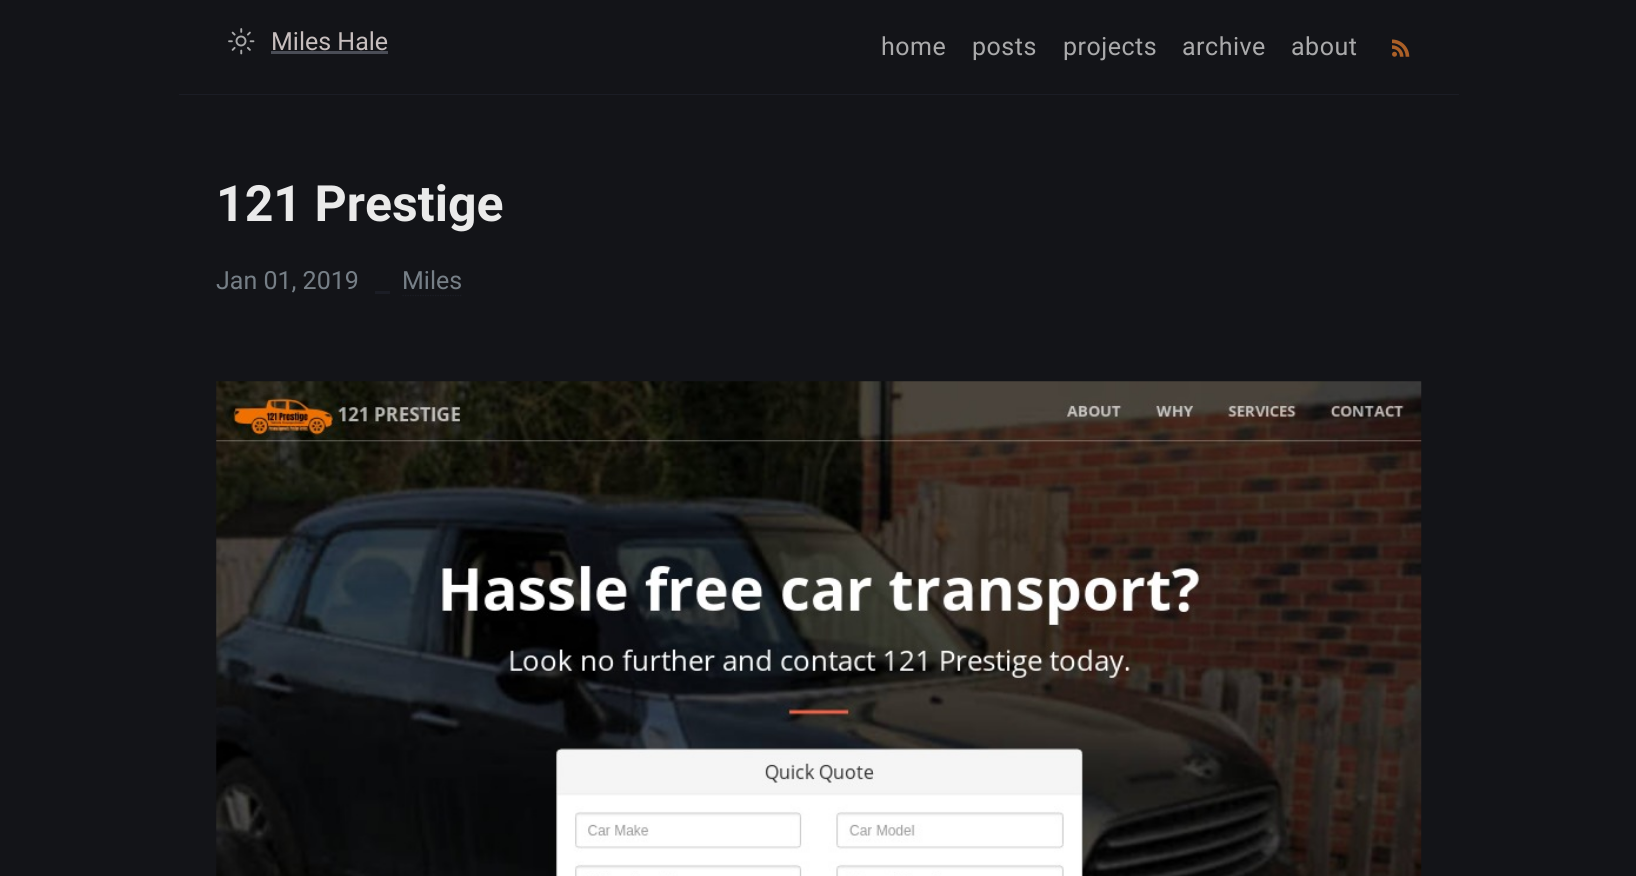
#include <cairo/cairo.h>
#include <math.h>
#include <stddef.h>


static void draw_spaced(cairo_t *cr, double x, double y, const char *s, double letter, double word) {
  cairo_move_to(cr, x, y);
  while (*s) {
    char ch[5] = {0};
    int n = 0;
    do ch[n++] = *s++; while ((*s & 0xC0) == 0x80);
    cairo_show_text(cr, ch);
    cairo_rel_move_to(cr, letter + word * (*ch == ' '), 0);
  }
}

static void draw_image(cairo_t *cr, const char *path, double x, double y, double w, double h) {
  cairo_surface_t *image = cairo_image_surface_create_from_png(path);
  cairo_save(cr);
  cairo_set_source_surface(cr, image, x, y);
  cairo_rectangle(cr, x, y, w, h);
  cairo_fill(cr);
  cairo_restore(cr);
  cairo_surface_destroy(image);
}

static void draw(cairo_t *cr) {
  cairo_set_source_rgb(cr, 19 / 255.0, 20 / 255.0, 24 / 255.0);
  cairo_paint(cr);
  cairo_set_source_rgb(cr, 27 / 255.0, 29 / 255.0, 37 / 255.0);
  cairo_rectangle(cr, 179, 94, 1280, 1);
  cairo_fill(cr);
  draw_image(cr, "images/1.png", 228, 28, 27, 27);
  cairo_set_source_rgb(cr, 74 / 255.0, 77 / 255.0, 86 / 255.0);
  cairo_rectangle(cr, 271, 51, 117, 3);
  cairo_fill(cr);
  draw_image(cr, "images/2.png", 1392, 39, 18, 18);
  cairo_set_source_rgb(cr, 27 / 255.0, 29 / 255.0, 37 / 255.0);
  cairo_rectangle(cr, 375, 291, 15, 3);
  cairo_fill(cr);
  cairo_new_path(cr);
  cairo_move_to(cr, 402.5, 295.5);
  cairo_line_to(cr, 462.5, 295.5);
  cairo_set_line_width(cr, 1.2);
  cairo_set_dash(cr, (double[]){1.25, 1.25}, 2, 0);
  cairo_stroke(cr);
  draw_image(cr, "images/3.png", 216, 381, 1206, 495);
  cairo_select_font_face(cr, "Roboto", CAIRO_FONT_SLANT_NORMAL, CAIRO_FONT_WEIGHT_NORMAL);
  cairo_set_font_size(cr, 25);
  cairo_set_source_rgb(cr, 199 / 255.0, 190 / 255.0, 190 / 255.0);
  cairo_move_to(cr, 271, 50);
  cairo_show_text(cr, "Miles Hale");
  cairo_set_source_rgb(cr, 170 / 255.0, 170 / 255.0, 171 / 255.0);
  draw_spaced(cr, 881, 55, "home", 0.5, 0);
  draw_spaced(cr, 972, 55, "posts", 0.5, 0);
  draw_spaced(cr, 1063, 55, "projects", 0.5, 0);
  draw_spaced(cr, 1182, 55, "archive", 0.5, 0);
  draw_spaced(cr, 1291, 55, "about", 0.5, 0);
  cairo_select_font_face(cr, "Roboto", CAIRO_FONT_SLANT_NORMAL, CAIRO_FONT_WEIGHT_BOLD);
  cairo_set_font_size(cr, 50);
  cairo_set_source_rgb(cr, 234 / 255.0, 234 / 255.0, 234 / 255.0);
  cairo_move_to(cr, 216, 221);
  cairo_show_text(cr, "121 Prestige");
  cairo_select_font_face(cr, "Roboto", CAIRO_FONT_SLANT_NORMAL, CAIRO_FONT_WEIGHT_NORMAL);
  cairo_set_font_size(cr, 25);
  cairo_set_source_rgb(cr, 118 / 255.0, 127 / 255.0, 135 / 255.0);
  cairo_move_to(cr, 216, 289);
  cairo_show_text(cr, "Jan 01, 2019");
  cairo_move_to(cr, 402, 289);
  cairo_show_text(cr, "Miles");
}

int main(void) {
  cairo_surface_t *surface = cairo_image_surface_create(CAIRO_FORMAT_RGB24, 1636, 876);
  cairo_t *cr = cairo_create(surface);
  cairo_font_options_t *options = cairo_font_options_create();
  cairo_font_options_set_hint_metrics(options, CAIRO_HINT_METRICS_OFF);
  cairo_font_options_set_hint_style(options, CAIRO_HINT_STYLE_NONE);
  cairo_set_font_options(cr, options);
  cairo_set_miter_limit(cr, 4);
  draw(cr);
  cairo_surface_write_to_png(surface, "out.png");
  cairo_font_options_destroy(options);
  cairo_destroy(cr);
  cairo_surface_destroy(surface);
  return 0;
}
